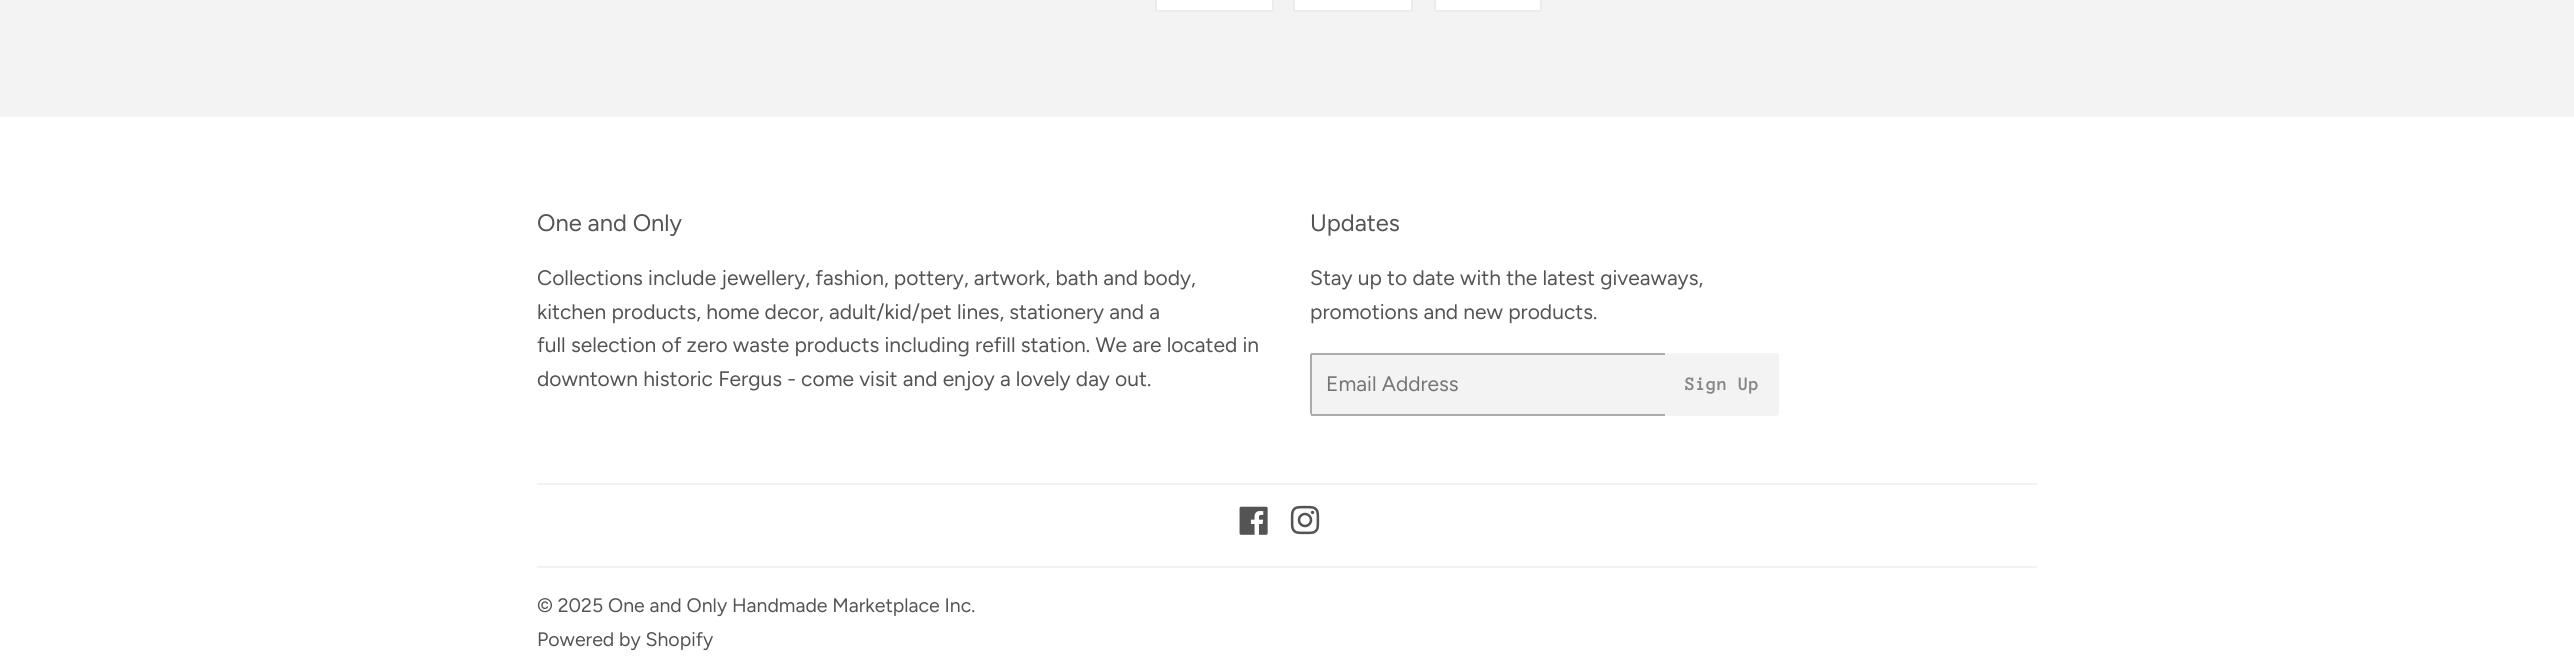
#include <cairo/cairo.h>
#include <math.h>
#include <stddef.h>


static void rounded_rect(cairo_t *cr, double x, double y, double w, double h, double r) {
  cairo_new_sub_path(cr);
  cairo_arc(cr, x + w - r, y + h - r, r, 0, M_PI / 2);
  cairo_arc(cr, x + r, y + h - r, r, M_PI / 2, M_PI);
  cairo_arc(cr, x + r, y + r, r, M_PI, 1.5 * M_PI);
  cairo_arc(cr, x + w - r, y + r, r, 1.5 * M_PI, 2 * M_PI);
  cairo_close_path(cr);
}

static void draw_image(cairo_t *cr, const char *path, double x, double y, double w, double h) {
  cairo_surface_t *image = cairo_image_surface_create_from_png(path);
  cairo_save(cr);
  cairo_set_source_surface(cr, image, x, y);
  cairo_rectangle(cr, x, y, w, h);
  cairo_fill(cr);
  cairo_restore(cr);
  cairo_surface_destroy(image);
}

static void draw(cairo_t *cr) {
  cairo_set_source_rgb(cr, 243 / 255.0, 243 / 255.0, 243 / 255.0);
  cairo_paint(cr);
  cairo_set_source_rgb(cr, 1, 1, 1);
  rounded_rect(cr, 1156, -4, 117, 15, 2);
  cairo_fill_preserve(cr);
  cairo_set_source_rgb(cr, 236 / 255.0, 236 / 255.0, 236 / 255.0);
  cairo_stroke(cr);
  cairo_set_source_rgb(cr, 1, 1, 1);
  rounded_rect(cr, 1294, -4, 118, 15, 2);
  cairo_fill_preserve(cr);
  cairo_set_source_rgb(cr, 236 / 255.0, 236 / 255.0, 236 / 255.0);
  cairo_stroke(cr);
  cairo_set_source_rgb(cr, 1, 1, 1);
  rounded_rect(cr, 1435, -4, 106, 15, 2);
  cairo_fill_preserve(cr);
  cairo_set_source_rgb(cr, 236 / 255.0, 236 / 255.0, 236 / 255.0);
  cairo_stroke(cr);
  cairo_set_source_rgb(cr, 1, 1, 1);
  cairo_rectangle(cr, 0, 117, 2574, 549);
  cairo_fill(cr);
  cairo_set_source_rgb(cr, 243 / 255.0, 243 / 255.0, 243 / 255.0);
  rounded_rect(cr, 1310, 353, 357, 63, 3);
  cairo_fill(cr);
  cairo_set_source_rgb(cr, 171 / 255.0, 171 / 255.0, 171 / 255.0);
  cairo_rectangle(cr, 1311, 353, 354, 2);
  cairo_fill(cr);
  cairo_rectangle(cr, 1311, 414, 354, 2);
  cairo_fill(cr);
  cairo_rectangle(cr, 1310, 354, 2, 60);
  cairo_fill(cr);
  cairo_set_source_rgb(cr, 243 / 255.0, 243 / 255.0, 243 / 255.0);
  cairo_new_path(cr);
  cairo_move_to(cr, 1667, 353);
  cairo_line_to(cr, 1776, 353);
  cairo_curve_to(cr, 1777.5, 353, 1779, 354.5, 1779, 356);
  cairo_line_to(cr, 1779, 413);
  cairo_curve_to(cr, 1779, 414.5, 1777.5, 416, 1776, 416);
  cairo_line_to(cr, 1667, 416);
  cairo_close_path(cr);
  cairo_fill(cr);
  cairo_set_source_rgb(cr, 242 / 255.0, 242 / 255.0, 242 / 255.0);
  cairo_rectangle(cr, 537, 483, 1500, 2);
  cairo_fill(cr);
  draw_image(cr, "images/1.png", 1239, 506, 29, 29);
  draw_image(cr, "images/2.png", 1290, 505, 30, 30);
  cairo_rectangle(cr, 537, 566, 1500, 2);
  cairo_fill(cr);
  cairo_select_font_face(cr, "Figtree", CAIRO_FONT_SLANT_NORMAL, CAIRO_FONT_WEIGHT_NORMAL);
  cairo_set_font_size(cr, 23.75);
  cairo_set_source_rgb(cr, 84 / 255.0, 84 / 255.0, 84 / 255.0);
  cairo_move_to(cr, 537, 231);
  cairo_show_text(cr, "One and Only");
  cairo_set_font_size(cr, 21);
  cairo_move_to(cr, 537, 285);
  cairo_show_text(cr, "Collections include jewellery, fashion, pottery, artwork, bath and body,");
  cairo_move_to(cr, 537, 319);
  cairo_show_text(cr, "kitchen products, home decor, adult/kid/pet lines, stationery and a");
  cairo_move_to(cr, 537, 352);
  cairo_show_text(cr, "full selection of zero waste products including refill station. We are located in");
  cairo_move_to(cr, 537, 386);
  cairo_show_text(cr, "downtown historic Fergus - come visit and enjoy a lovely day out.");
  cairo_set_font_size(cr, 23.75);
  cairo_move_to(cr, 1310, 231);
  cairo_show_text(cr, "Updates");
  cairo_set_font_size(cr, 21);
  cairo_move_to(cr, 1310, 285);
  cairo_show_text(cr, "Stay up to date with the latest giveaways,");
  cairo_move_to(cr, 1310, 319);
  cairo_show_text(cr, "promotions and new products.");
  cairo_set_source_rgb(cr, 117 / 255.0, 117 / 255.0, 117 / 255.0);
  cairo_move_to(cr, 1326, 391);
  cairo_show_text(cr, "Email Address");
  cairo_select_font_face(cr, "Anonymous Pro", CAIRO_FONT_SLANT_NORMAL, CAIRO_FONT_WEIGHT_BOLD);
  cairo_set_font_size(cr, 19.5);
  cairo_set_source_rgb(cr, 133 / 255.0, 133 / 255.0, 133 / 255.0);
  cairo_move_to(cr, 1685, 390);
  cairo_show_text(cr, "Sign Up");
  cairo_select_font_face(cr, "Figtree", CAIRO_FONT_SLANT_NORMAL, CAIRO_FONT_WEIGHT_NORMAL);
  cairo_set_source_rgb(cr, 84 / 255.0, 84 / 255.0, 84 / 255.0);
  cairo_move_to(cr, 537, 612);
  cairo_show_text(cr, "© 2025 One and Only Handmade Marketplace Inc.");
  cairo_move_to(cr, 537, 646);
  cairo_show_text(cr, "Powered by Shopify");
}

int main(void) {
  cairo_surface_t *surface = cairo_image_surface_create(CAIRO_FORMAT_RGB24, 2574, 666);
  cairo_t *cr = cairo_create(surface);
  cairo_font_options_t *options = cairo_font_options_create();
  cairo_font_options_set_hint_metrics(options, CAIRO_HINT_METRICS_OFF);
  cairo_font_options_set_hint_style(options, CAIRO_HINT_STYLE_NONE);
  cairo_set_font_options(cr, options);
  cairo_set_miter_limit(cr, 4);
  draw(cr);
  cairo_surface_write_to_png(surface, "out.png");
  cairo_font_options_destroy(options);
  cairo_destroy(cr);
  cairo_surface_destroy(surface);
  return 0;
}
